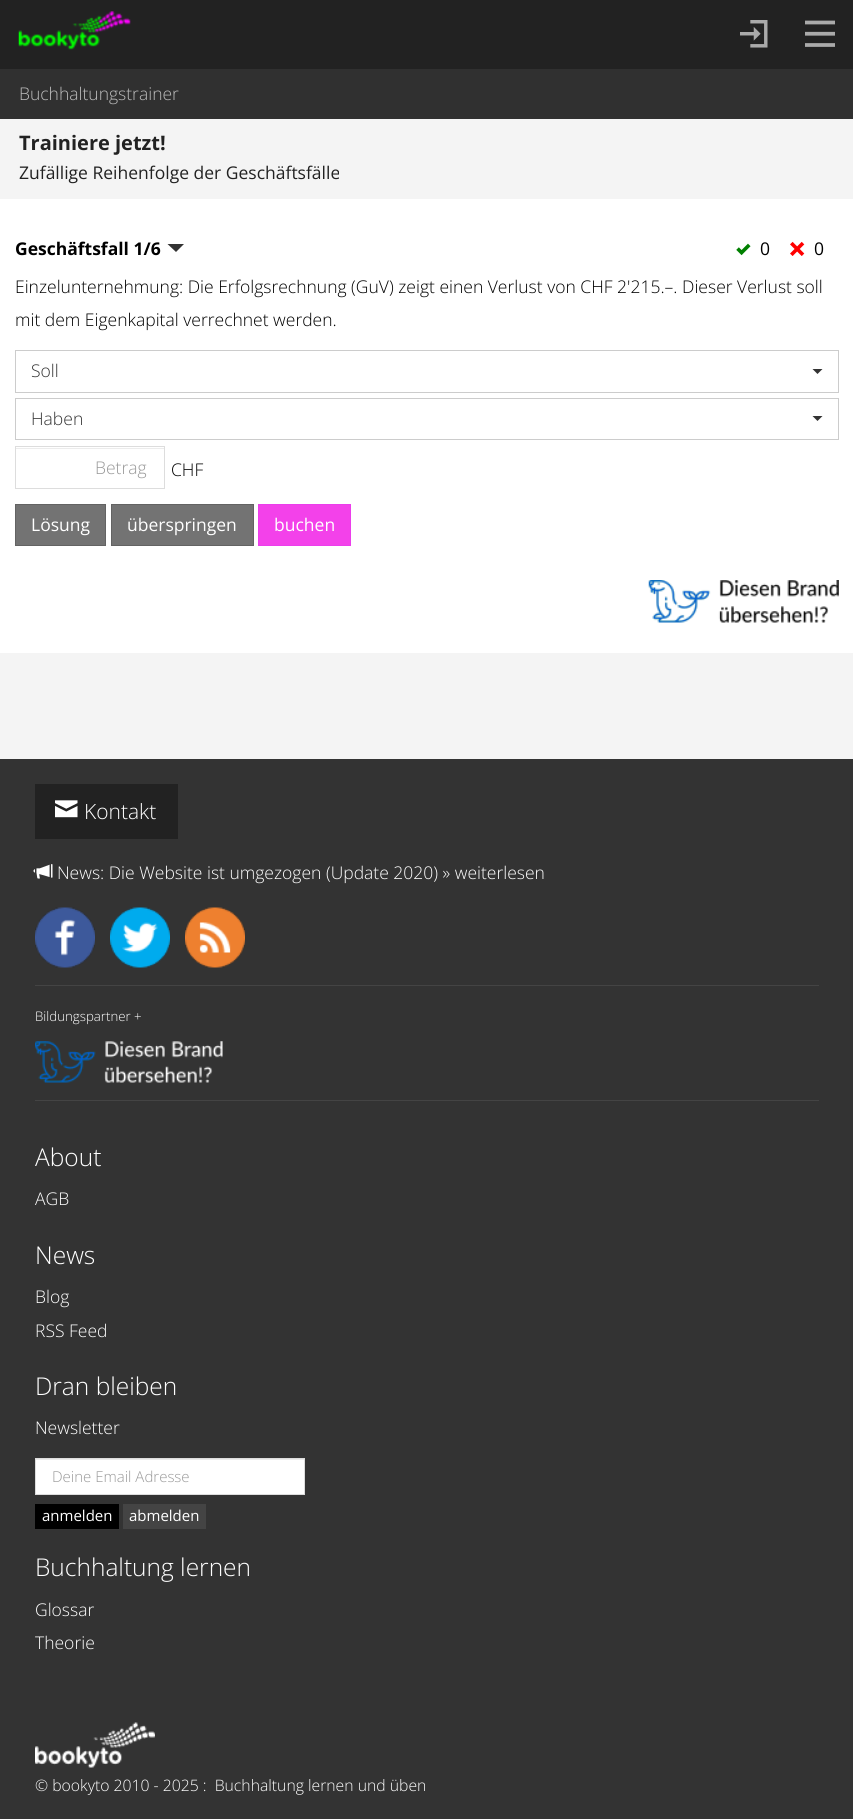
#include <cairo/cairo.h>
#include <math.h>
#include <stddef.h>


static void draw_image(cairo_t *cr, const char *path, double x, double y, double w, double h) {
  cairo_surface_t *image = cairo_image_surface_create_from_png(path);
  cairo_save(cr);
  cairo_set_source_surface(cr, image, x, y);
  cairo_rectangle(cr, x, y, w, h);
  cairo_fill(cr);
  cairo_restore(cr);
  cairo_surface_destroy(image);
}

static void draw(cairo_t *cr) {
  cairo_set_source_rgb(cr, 244 / 255.0, 244 / 255.0, 244 / 255.0);
  cairo_paint(cr);
  cairo_set_source_rgb(cr, 34 / 255.0, 34 / 255.0, 34 / 255.0);
  cairo_rectangle(cr, 0, 0, 853, 69);
  cairo_fill(cr);
  draw_image(cr, "images/1.png", 18, 11, 113, 39);
  draw_image(cr, "images/2.png", 740, 20, 28, 28);
  draw_image(cr, "images/3.png", 805, 20, 30, 27);
  cairo_set_source_rgb(cr, 48 / 255.0, 48 / 255.0, 48 / 255.0);
  cairo_rectangle(cr, 0, 69, 853, 50);
  cairo_fill(cr);
  cairo_set_source_rgb(cr, 1, 1, 1);
  cairo_rectangle(cr, 0, 199, 853, 454);
  cairo_fill(cr);
  cairo_set_source_rgb(cr, 51 / 255.0, 51 / 255.0, 51 / 255.0);
  cairo_new_path(cr);
  cairo_move_to(cr, 167.5, 244);
  cairo_line_to(cr, 184, 244);
  cairo_line_to(cr, 176, 252);
  cairo_close_path(cr);
  cairo_fill(cr);
  draw_image(cr, "images/4.png", 736, 243, 15, 13);
  draw_image(cr, "images/5.png", 790, 241, 15, 15);
  cairo_rectangle(cr, 15.5, 350.5, 823, 42);
  cairo_set_source_rgb(cr, 204 / 255.0, 204 / 255.0, 204 / 255.0);
  cairo_set_line_width(cr, 1);
  cairo_stroke(cr);
  cairo_set_source_rgb(cr, 51 / 255.0, 51 / 255.0, 51 / 255.0);
  cairo_new_path(cr);
  cairo_move_to(cr, 812.5, 369);
  cairo_line_to(cr, 822.5, 369);
  cairo_line_to(cr, 817.5, 374);
  cairo_close_path(cr);
  cairo_fill(cr);
  cairo_rectangle(cr, 15.5, 398.5, 823, 41);
  cairo_set_source_rgb(cr, 204 / 255.0, 204 / 255.0, 204 / 255.0);
  cairo_stroke(cr);
  cairo_set_source_rgb(cr, 51 / 255.0, 51 / 255.0, 51 / 255.0);
  cairo_new_path(cr);
  cairo_move_to(cr, 812.5, 416);
  cairo_line_to(cr, 822.5, 416);
  cairo_line_to(cr, 817.5, 421);
  cairo_close_path(cr);
  cairo_fill(cr);
  cairo_set_source_rgb(cr, 236 / 255.0, 236 / 255.0, 236 / 255.0);
  cairo_rectangle(cr, 16, 448, 148, 1);
  cairo_fill(cr);
  cairo_rectangle(cr, 15.5, 446.5, 149, 42);
  cairo_set_source_rgb(cr, 221 / 255.0, 221 / 255.0, 221 / 255.0);
  cairo_stroke(cr);
  cairo_set_source_rgb(cr, 115 / 255.0, 115 / 255.0, 115 / 255.0);
  cairo_rectangle(cr, 15.5, 504.5, 90, 41);
  cairo_fill_preserve(cr);
  cairo_set_source_rgb(cr, 99 / 255.0, 99 / 255.0, 99 / 255.0);
  cairo_stroke(cr);
  cairo_set_source_rgb(cr, 115 / 255.0, 115 / 255.0, 115 / 255.0);
  cairo_rectangle(cr, 111.5, 504.5, 142, 41);
  cairo_fill_preserve(cr);
  cairo_set_source_rgb(cr, 99 / 255.0, 99 / 255.0, 99 / 255.0);
  cairo_stroke(cr);
  cairo_set_source_rgb(cr, 243 / 255.0, 65 / 255.0, 234 / 255.0);
  cairo_rectangle(cr, 258.5, 504.5, 92, 41);
  cairo_fill_preserve(cr);
  cairo_set_source_rgb(cr, 235 / 255.0, 62 / 255.0, 235 / 255.0);
  cairo_stroke(cr);
  draw_image(cr, "images/6.png", 648, 580, 191, 43);
  cairo_set_source_rgb(cr, 51 / 255.0, 51 / 255.0, 51 / 255.0);
  cairo_rectangle(cr, 0, 759, 853, 1060);
  cairo_fill(cr);
  cairo_set_source_rgb(cr, 34 / 255.0, 34 / 255.0, 34 / 255.0);
  cairo_rectangle(cr, 35, 784, 143, 55);
  cairo_fill(cr);
  draw_image(cr, "images/7.png", 55, 800, 23, 18);
  draw_image(cr, "images/8.png", 33, 864, 20, 15);
  draw_image(cr, "images/9.png", 35, 907, 60, 61);
  draw_image(cr, "images/10.png", 110, 907, 60, 61);
  draw_image(cr, "images/11.png", 185, 907, 60, 61);
  cairo_set_source_rgb(cr, 68 / 255.0, 68 / 255.0, 68 / 255.0);
  cairo_rectangle(cr, 35, 985, 784, 1);
  cairo_fill(cr);
  draw_image(cr, "images/12.png", 35, 1041, 188, 42);
  cairo_rectangle(cr, 35, 1100, 784, 1);
  cairo_fill(cr);
  cairo_set_source_rgb(cr, 1, 1, 1);
  cairo_rectangle(cr, 36, 1460, 268, 34);
  cairo_fill(cr);
  cairo_set_source_rgb(cr, 236 / 255.0, 236 / 255.0, 236 / 255.0);
  cairo_rectangle(cr, 36, 1459, 268, 1);
  cairo_fill(cr);
  cairo_rectangle(cr, 35.5, 1458.5, 269, 36);
  cairo_set_source_rgb(cr, 221 / 255.0, 221 / 255.0, 221 / 255.0);
  cairo_stroke(cr);
  cairo_set_source_rgb(cr, 0, 0, 0);
  cairo_rectangle(cr, 35, 1504, 84, 25);
  cairo_fill(cr);
  cairo_set_source_rgb(cr, 68 / 255.0, 68 / 255.0, 68 / 255.0);
  cairo_rectangle(cr, 123, 1504, 83, 25);
  cairo_fill(cr);
  draw_image(cr, "images/13.png", 35, 1722, 120, 46);
  cairo_select_font_face(cr, "Open Sans Light", CAIRO_FONT_SLANT_NORMAL, CAIRO_FONT_WEIGHT_NORMAL);
  cairo_set_font_size(cr, 17.5);
  cairo_set_source_rgb(cr, 187 / 255.0, 187 / 255.0, 187 / 255.0);
  cairo_move_to(cr, 19, 100);
  cairo_show_text(cr, "Buchhaltungstrainer");
  cairo_select_font_face(cr, "Open Sans", CAIRO_FONT_SLANT_NORMAL, CAIRO_FONT_WEIGHT_BOLD);
  cairo_set_font_size(cr, 20);
  cairo_set_source_rgb(cr, 34 / 255.0, 34 / 255.0, 34 / 255.0);
  cairo_move_to(cr, 19, 150);
  cairo_show_text(cr, "Trainiere jetzt!");
  cairo_select_font_face(cr, "Open Sans", CAIRO_FONT_SLANT_NORMAL, CAIRO_FONT_WEIGHT_NORMAL);
  cairo_set_font_size(cr, 17.5);
  cairo_move_to(cr, 19, 179);
  cairo_show_text(cr, "Zufällige Reihenfolge der Geschäftsfälle");
  cairo_select_font_face(cr, "Open Sans", CAIRO_FONT_SLANT_NORMAL, CAIRO_FONT_WEIGHT_BOLD);
  cairo_set_source_rgb(cr, 0, 0, 0);
  cairo_move_to(cr, 15, 255);
  cairo_show_text(cr, "Geschäftsfall 1/6");
  cairo_select_font_face(cr, "Open Sans", CAIRO_FONT_SLANT_NORMAL, CAIRO_FONT_WEIGHT_NORMAL);
  cairo_move_to(cr, 760, 255);
  cairo_show_text(cr, "0");
  cairo_move_to(cr, 814, 255);
  cairo_show_text(cr, "0");
  cairo_select_font_face(cr, "Open Sans Light", CAIRO_FONT_SLANT_NORMAL, CAIRO_FONT_WEIGHT_NORMAL);
  cairo_move_to(cr, 15, 293);
  cairo_show_text(cr, "Einzelunternehmung: Die Erfolgsrechnung (GuV) zeigt einen Verlust von CHF 2'215.–. Dieser Verlust soll");
  cairo_move_to(cr, 15, 326);
  cairo_show_text(cr, "mit dem Eigenkapital verrechnet werden.");
  cairo_set_source_rgb(cr, 51 / 255.0, 51 / 255.0, 51 / 255.0);
  cairo_move_to(cr, 31, 377);
  cairo_show_text(cr, "Soll");
  cairo_move_to(cr, 31, 425);
  cairo_show_text(cr, "Haben");
  cairo_set_source_rgb(cr, 153 / 255.0, 153 / 255.0, 153 / 255.0);
  cairo_move_to(cr, 95, 474);
  cairo_show_text(cr, "Betrag");
  cairo_set_source_rgb(cr, 0, 0, 0);
  cairo_move_to(cr, 171, 476);
  cairo_show_text(cr, "CHF");
  cairo_select_font_face(cr, "Open Sans", CAIRO_FONT_SLANT_NORMAL, CAIRO_FONT_WEIGHT_NORMAL);
  cairo_set_source_rgb(cr, 1, 1, 1);
  cairo_move_to(cr, 31, 531);
  cairo_show_text(cr, "Lösung");
  cairo_move_to(cr, 127, 531);
  cairo_show_text(cr, "überspringen");
  cairo_move_to(cr, 274, 531);
  cairo_show_text(cr, "buchen");
  cairo_select_font_face(cr, "Open Sans Light", CAIRO_FONT_SLANT_NORMAL, CAIRO_FONT_WEIGHT_NORMAL);
  cairo_set_font_size(cr, 21);
  cairo_move_to(cr, 84, 819);
  cairo_show_text(cr, "Kontakt");
  cairo_set_font_size(cr, 17.5);
  cairo_move_to(cr, 57, 879);
  cairo_show_text(cr, "News: Die Website ist umgezogen (Update 2020) » weiterlesen");
  cairo_set_font_size(cr, 13.25);
  cairo_move_to(cr, 35, 1021);
  cairo_show_text(cr, "Bildungspartner +");
  cairo_set_font_size(cr, 24.5);
  cairo_move_to(cr, 35, 1166);
  cairo_show_text(cr, "About");
  cairo_set_font_size(cr, 17.5);
  cairo_move_to(cr, 35, 1205);
  cairo_show_text(cr, "AGB");
  cairo_set_font_size(cr, 24.5);
  cairo_move_to(cr, 35, 1264);
  cairo_show_text(cr, "News");
  cairo_set_font_size(cr, 17.5);
  cairo_move_to(cr, 35, 1303);
  cairo_show_text(cr, "Blog");
  cairo_move_to(cr, 35, 1337);
  cairo_show_text(cr, "RSS Feed");
  cairo_set_font_size(cr, 24.5);
  cairo_move_to(cr, 35, 1395);
  cairo_show_text(cr, "Dran bleiben");
  cairo_set_font_size(cr, 17.5);
  cairo_move_to(cr, 35, 1434);
  cairo_show_text(cr, "Newsletter");
  cairo_set_font_size(cr, 15);
  cairo_set_source_rgb(cr, 153 / 255.0, 153 / 255.0, 153 / 255.0);
  cairo_move_to(cr, 52, 1482);
  cairo_show_text(cr, "Deine Email Adresse");
  cairo_select_font_face(cr, "Open Sans", CAIRO_FONT_SLANT_NORMAL, CAIRO_FONT_WEIGHT_NORMAL);
  cairo_set_source_rgb(cr, 1, 1, 1);
  cairo_move_to(cr, 42, 1521);
  cairo_show_text(cr, "anmelden");
  cairo_move_to(cr, 129, 1521);
  cairo_show_text(cr, "abmelden");
  cairo_select_font_face(cr, "Open Sans Light", CAIRO_FONT_SLANT_NORMAL, CAIRO_FONT_WEIGHT_NORMAL);
  cairo_set_font_size(cr, 24.5);
  cairo_move_to(cr, 35, 1576);
  cairo_show_text(cr, "Buchhaltung lernen");
  cairo_set_font_size(cr, 17.5);
  cairo_move_to(cr, 35, 1616);
  cairo_show_text(cr, "Glossar");
  cairo_move_to(cr, 35, 1649);
  cairo_show_text(cr, "Theorie");
  cairo_set_font_size(cr, 15.75);
  cairo_move_to(cr, 35, 1791);
  cairo_show_text(cr, "© bookyto 2010 - 2025 :  Buchhaltung lernen und üben");
}

int main(void) {
  cairo_surface_t *surface = cairo_image_surface_create(CAIRO_FORMAT_RGB24, 853, 1819);
  cairo_t *cr = cairo_create(surface);
  cairo_font_options_t *options = cairo_font_options_create();
  cairo_font_options_set_hint_metrics(options, CAIRO_HINT_METRICS_OFF);
  cairo_font_options_set_hint_style(options, CAIRO_HINT_STYLE_NONE);
  cairo_set_font_options(cr, options);
  cairo_set_miter_limit(cr, 4);
  draw(cr);
  cairo_surface_write_to_png(surface, "out.png");
  cairo_font_options_destroy(options);
  cairo_destroy(cr);
  cairo_surface_destroy(surface);
  return 0;
}
